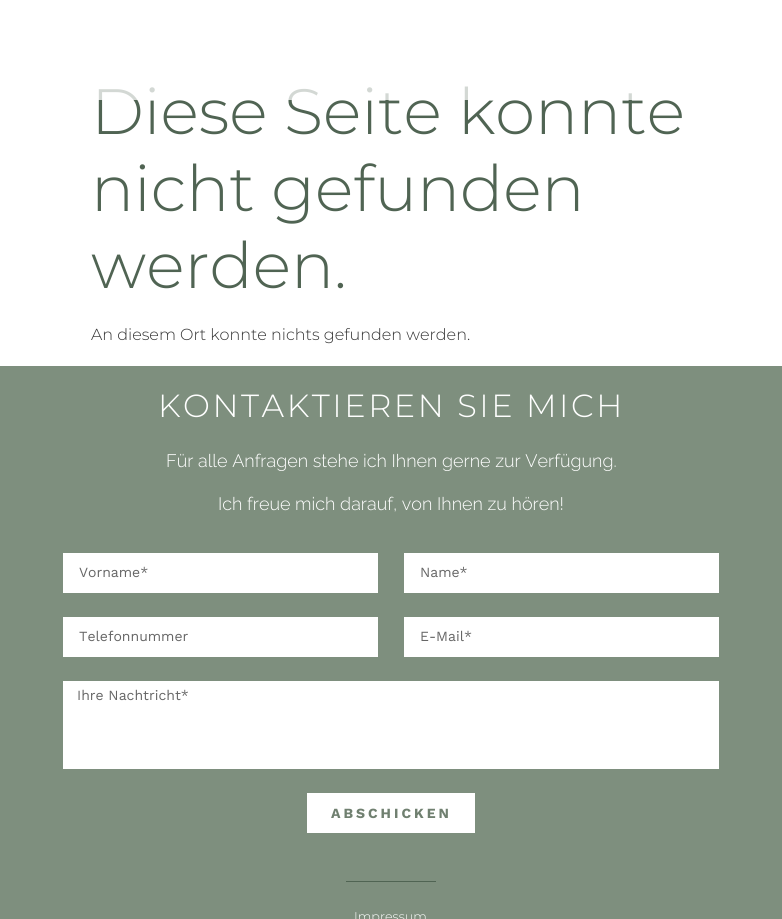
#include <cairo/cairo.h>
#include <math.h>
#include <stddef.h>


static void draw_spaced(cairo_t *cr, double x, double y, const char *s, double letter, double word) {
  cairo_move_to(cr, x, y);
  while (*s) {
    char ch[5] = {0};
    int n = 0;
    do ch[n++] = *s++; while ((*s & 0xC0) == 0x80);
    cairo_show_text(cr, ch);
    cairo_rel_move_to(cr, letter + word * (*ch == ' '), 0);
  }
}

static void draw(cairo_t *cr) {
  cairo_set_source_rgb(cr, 1, 1, 1);
  cairo_paint(cr);
  cairo_set_source_rgb(cr, 126 / 255.0, 143 / 255.0, 126 / 255.0);
  cairo_rectangle(cr, 0, 366, 782, 553);
  cairo_fill(cr);
  cairo_set_source_rgb(cr, 1, 1, 1);
  cairo_rectangle(cr, 63, 553, 315, 40);
  cairo_fill(cr);
  cairo_rectangle(cr, 404, 553, 315, 40);
  cairo_fill(cr);
  cairo_rectangle(cr, 63, 617, 315, 40);
  cairo_fill(cr);
  cairo_rectangle(cr, 404, 617, 315, 40);
  cairo_fill(cr);
  cairo_rectangle(cr, 63, 681, 656, 88);
  cairo_fill(cr);
  cairo_rectangle(cr, 307, 793, 168, 40);
  cairo_fill(cr);
  cairo_set_source_rgb(cr, 80 / 255.0, 100 / 255.0, 83 / 255.0);
  cairo_rectangle(cr, 346, 881, 90, 1);
  cairo_fill(cr);
  cairo_select_font_face(cr, "Montserrat Light", CAIRO_FONT_SLANT_NORMAL, CAIRO_FONT_WEIGHT_NORMAL);
  cairo_set_font_size(cr, 64);
  cairo_move_to(cr, 91, 134);
  cairo_show_text(cr, "Diese Seite konnte");
  cairo_move_to(cr, 91, 211);
  cairo_show_text(cr, "nicht gefunden");
  cairo_move_to(cr, 91, 288);
  cairo_show_text(cr, "werden.");
  cairo_set_font_size(cr, 16);
  cairo_set_source_rgb(cr, 51 / 255.0, 51 / 255.0, 51 / 255.0);
  cairo_move_to(cr, 91, 340);
  cairo_show_text(cr, "An diesem Ort konnte nichts gefunden werden.");
  cairo_set_source_rgba(cr, 1, 1, 1, 0.75);
  cairo_rectangle(cr, 98, 86, 534, 14);
  cairo_fill(cr);
  cairo_set_font_size(cr, 32);
  cairo_set_source_rgb(cr, 1, 1, 1);
  draw_spaced(cr, 158, 417, "KONTAKTIEREN SIE MICH", 2.55, 0);
  cairo_select_font_face(cr, "Raleway Light", CAIRO_FONT_SLANT_NORMAL, CAIRO_FONT_WEIGHT_NORMAL);
  cairo_set_font_size(cr, 18);
  cairo_move_to(cr, 166, 467);
  cairo_show_text(cr, "Für alle Anfragen stehe ich Ihnen gerne zur Verfügung.");
  cairo_move_to(cr, 218, 510);
  cairo_show_text(cr, "Ich freue mich darauf, von Ihnen zu hören!");
  cairo_select_font_face(cr, "Work Sans", CAIRO_FONT_SLANT_NORMAL, CAIRO_FONT_WEIGHT_NORMAL);
  cairo_set_font_size(cr, 14);
  cairo_set_source_rgb(cr, 102 / 255.0, 102 / 255.0, 102 / 255.0);
  cairo_move_to(cr, 79, 577);
  cairo_show_text(cr, "Vorname*");
  cairo_move_to(cr, 420, 577);
  cairo_show_text(cr, "Name*");
  cairo_move_to(cr, 79, 641);
  cairo_show_text(cr, "Telefonnummer");
  cairo_move_to(cr, 420, 641);
  cairo_show_text(cr, "E-Mail*");
  cairo_move_to(cr, 77, 700);
  cairo_show_text(cr, "Ihre Nachtricht*");
  cairo_select_font_face(cr, "Work Sans", CAIRO_FONT_SLANT_NORMAL, CAIRO_FONT_WEIGHT_BOLD);
  cairo_set_source_rgb(cr, 112 / 255.0, 128 / 255.0, 112 / 255.0);
  draw_spaced(cr, 331, 818, "ABSCHICKEN", 3, 0);
  cairo_select_font_face(cr, "Montserrat Light", CAIRO_FONT_SLANT_NORMAL, CAIRO_FONT_WEIGHT_NORMAL);
  cairo_set_font_size(cr, 12.75);
  cairo_set_source_rgb(cr, 1, 1, 1);
  cairo_move_to(cr, 354, 921);
  cairo_show_text(cr, "Impressum");
}

int main(void) {
  cairo_surface_t *surface = cairo_image_surface_create(CAIRO_FORMAT_RGB24, 782, 919);
  cairo_t *cr = cairo_create(surface);
  cairo_font_options_t *options = cairo_font_options_create();
  cairo_font_options_set_hint_metrics(options, CAIRO_HINT_METRICS_OFF);
  cairo_font_options_set_hint_style(options, CAIRO_HINT_STYLE_NONE);
  cairo_set_font_options(cr, options);
  cairo_set_miter_limit(cr, 4);
  draw(cr);
  cairo_surface_write_to_png(surface, "out.png");
  cairo_font_options_destroy(options);
  cairo_destroy(cr);
  cairo_surface_destroy(surface);
  return 0;
}
